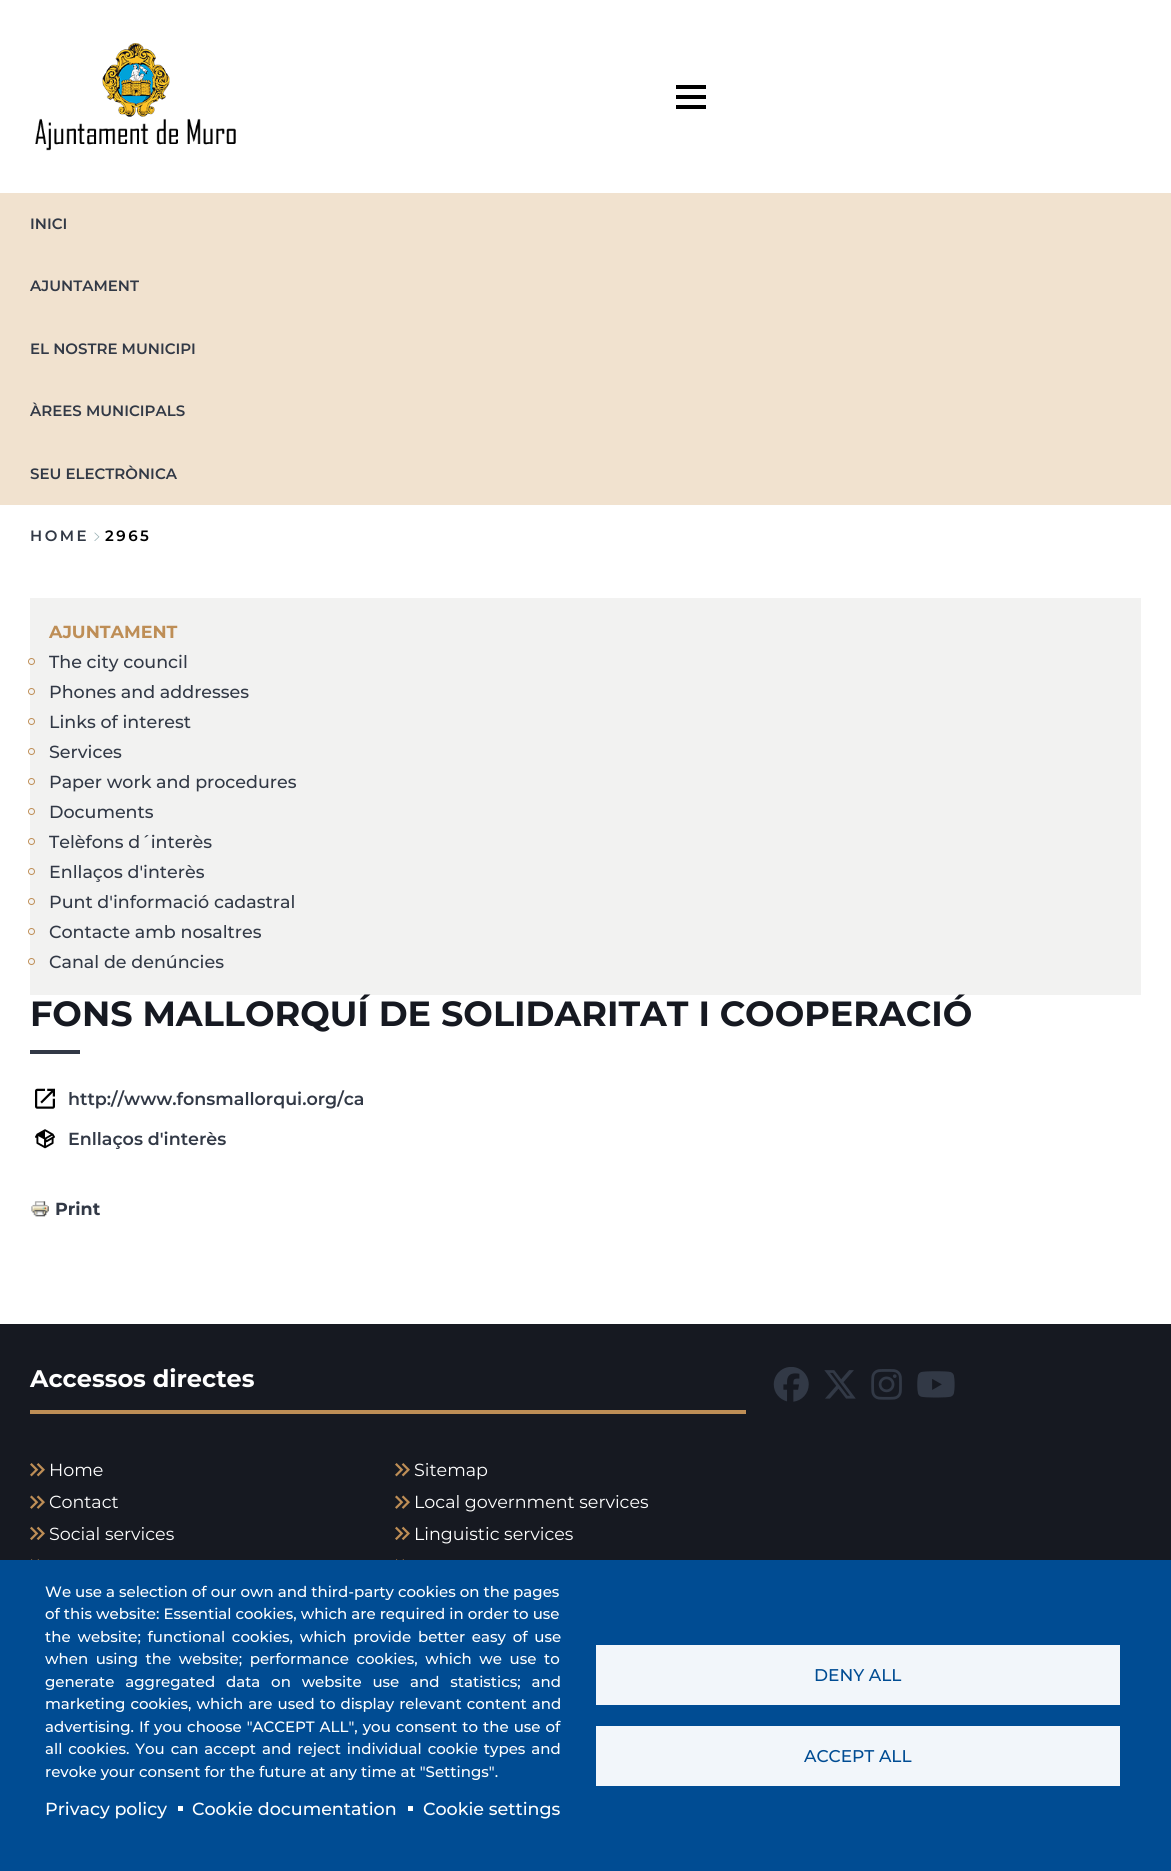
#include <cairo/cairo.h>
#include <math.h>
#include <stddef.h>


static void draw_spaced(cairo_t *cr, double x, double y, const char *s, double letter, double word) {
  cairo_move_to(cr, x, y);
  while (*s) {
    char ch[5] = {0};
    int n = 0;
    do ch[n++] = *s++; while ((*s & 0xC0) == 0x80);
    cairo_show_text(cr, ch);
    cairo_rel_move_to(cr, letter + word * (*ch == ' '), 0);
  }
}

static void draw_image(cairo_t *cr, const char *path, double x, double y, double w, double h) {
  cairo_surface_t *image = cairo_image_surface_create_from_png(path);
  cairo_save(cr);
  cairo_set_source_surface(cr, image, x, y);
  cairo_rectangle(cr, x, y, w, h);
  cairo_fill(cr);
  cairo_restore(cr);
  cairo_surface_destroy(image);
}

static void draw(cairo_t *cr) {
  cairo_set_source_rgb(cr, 1, 1, 1);
  cairo_paint(cr);
  draw_image(cr, "images/1.png", 35, 43, 201, 108);
  cairo_set_source_rgb(cr, 0, 0, 0);
  cairo_rectangle(cr, 676, 95, 30, 4);
  cairo_fill(cr);
  cairo_rectangle(cr, 676, 85, 30, 4);
  cairo_fill(cr);
  cairo_rectangle(cr, 676, 105, 30, 4);
  cairo_fill(cr);
  cairo_set_source_rgb(cr, 241 / 255.0, 226 / 255.0, 207 / 255.0);
  cairo_rectangle(cr, 0, 193, 1171, 312);
  cairo_fill(cr);
  draw_image(cr, "images/2.png", 94, 532, 6, 9);
  cairo_set_source_rgb(cr, 242 / 255.0, 242 / 255.0, 241 / 255.0);
  cairo_rectangle(cr, 30, 598, 1111, 397);
  cairo_fill(cr);
  cairo_arc(cr, 31.5, 661.5, 3, 0, 2 * M_PI);
  cairo_set_source_rgb(cr, 190 / 255.0, 142 / 255.0, 86 / 255.0);
  cairo_set_line_width(cr, 1);
  cairo_stroke(cr);
  cairo_arc(cr, 31.5, 691.5, 3, 0, 2 * M_PI);
  cairo_stroke(cr);
  cairo_arc(cr, 31.5, 721.5, 3, 0, 2 * M_PI);
  cairo_stroke(cr);
  cairo_arc(cr, 31.5, 751.5, 3, 0, 2 * M_PI);
  cairo_stroke(cr);
  cairo_arc(cr, 31.5, 781.5, 3, 0, 2 * M_PI);
  cairo_stroke(cr);
  cairo_arc(cr, 31.5, 811.5, 3, 0, 2 * M_PI);
  cairo_stroke(cr);
  cairo_arc(cr, 31.5, 841.5, 3, 0, 2 * M_PI);
  cairo_stroke(cr);
  cairo_arc(cr, 31.5, 871.5, 3, 0, 2 * M_PI);
  cairo_stroke(cr);
  cairo_arc(cr, 31.5, 901.5, 3, 0, 2 * M_PI);
  cairo_stroke(cr);
  cairo_arc(cr, 31.5, 931.5, 3, 0, 2 * M_PI);
  cairo_stroke(cr);
  cairo_arc(cr, 31.5, 961.5, 3, 0, 2 * M_PI);
  cairo_stroke(cr);
  cairo_set_source_rgb(cr, 50 / 255.0, 57 / 255.0, 70 / 255.0);
  cairo_rectangle(cr, 30, 1050, 50, 4);
  cairo_fill(cr);
  draw_image(cr, "images/3.png", 35, 1088, 20, 21);
  draw_image(cr, "images/4.png", 35, 1129, 20, 20);
  draw_image(cr, "images/5.png", 31, 1201, 18, 16);
  cairo_set_source_rgb(cr, 22 / 255.0, 25 / 255.0, 33 / 255.0);
  cairo_rectangle(cr, 0, 1324, 1171, 236);
  cairo_fill(cr);
  cairo_set_source_rgb(cr, 190 / 255.0, 142 / 255.0, 86 / 255.0);
  cairo_rectangle(cr, 30, 1410, 716, 4);
  cairo_fill(cr);
  draw_image(cr, "images/6.png", 30, 1463, 15, 14);
  draw_image(cr, "images/6.png", 395, 1463, 15, 14);
  draw_image(cr, "images/7.png", 30, 1495, 15, 14);
  draw_image(cr, "images/7.png", 395, 1495, 15, 14);
  draw_image(cr, "images/8.png", 30, 1526, 15, 14);
  draw_image(cr, "images/8.png", 395, 1526, 15, 14);
  draw_image(cr, "images/9.png", 31, 1559, 8, 1);
  draw_image(cr, "images/9.png", 396, 1559, 8, 1);
  draw_image(cr, "images/10.png", 773, 1367, 36, 35);
  draw_image(cr, "images/11.png", 824, 1370, 32, 29);
  draw_image(cr, "images/12.png", 871, 1369, 31, 31);
  draw_image(cr, "images/13.png", 917, 1371, 38, 27);
  cairo_set_source_rgb(cr, 0, 76 / 255.0, 147 / 255.0);
  cairo_rectangle(cr, 0, 1560, 1171, 311);
  cairo_fill(cr);
  cairo_set_source_rgb(cr, 1, 1, 1);
  cairo_rectangle(cr, 178, 1806, 5, 5);
  cairo_fill(cr);
  cairo_rectangle(cr, 408, 1806, 5, 5);
  cairo_fill(cr);
  cairo_set_source_rgb(cr, 242 / 255.0, 246 / 255.0, 250 / 255.0);
  cairo_rectangle(cr, 596, 1645, 524, 60);
  cairo_fill(cr);
  cairo_rectangle(cr, 596, 1726, 524, 60);
  cairo_fill(cr);
  cairo_select_font_face(cr, "Montserrat SemiBold", CAIRO_FONT_SLANT_NORMAL, CAIRO_FONT_WEIGHT_NORMAL);
  cairo_set_font_size(cr, 15);
  cairo_set_source_rgb(cr, 50 / 255.0, 57 / 255.0, 70 / 255.0);
  cairo_move_to(cr, 30, 229);
  cairo_show_text(cr, "INICI");
  cairo_move_to(cr, 30, 291);
  cairo_show_text(cr, "AJUNTAMENT");
  cairo_move_to(cr, 30, 354);
  cairo_show_text(cr, "EL NOSTRE MUNICIPI");
  cairo_move_to(cr, 30, 416);
  cairo_show_text(cr, "ÀREES MUNICIPALS");
  cairo_move_to(cr, 30, 479);
  cairo_show_text(cr, "SEU ELECTRÒNICA");
  draw_spaced(cr, 30, 541, "HOME", 2.5, 0);
  cairo_set_source_rgb(cr, 0, 0, 0);
  draw_spaced(cr, 105, 541, "2965", 2.5, 0);
  cairo_select_font_face(cr, "Montserrat", CAIRO_FONT_SLANT_NORMAL, CAIRO_FONT_WEIGHT_BOLD);
  cairo_set_font_size(cr, 17.5);
  cairo_set_source_rgb(cr, 190 / 255.0, 142 / 255.0, 86 / 255.0);
  cairo_move_to(cr, 49, 638);
  cairo_show_text(cr, "AJUNTAMENT");
  cairo_select_font_face(cr, "Montserrat Medium", CAIRO_FONT_SLANT_NORMAL, CAIRO_FONT_WEIGHT_NORMAL);
  cairo_set_source_rgb(cr, 50 / 255.0, 57 / 255.0, 70 / 255.0);
  cairo_move_to(cr, 49, 668);
  cairo_show_text(cr, "The city council");
  cairo_move_to(cr, 49, 698);
  cairo_show_text(cr, "Phones and addresses");
  cairo_move_to(cr, 49, 728);
  cairo_show_text(cr, "Links of interest");
  cairo_move_to(cr, 49, 758);
  cairo_show_text(cr, "Services");
  cairo_move_to(cr, 49, 788);
  cairo_show_text(cr, "Paper work and procedures");
  cairo_move_to(cr, 49, 818);
  cairo_show_text(cr, "Documents");
  cairo_move_to(cr, 49, 848);
  cairo_show_text(cr, "Telèfons d´interès");
  cairo_move_to(cr, 49, 878);
  cairo_show_text(cr, "Enllaços d'interès");
  cairo_move_to(cr, 49, 908);
  cairo_show_text(cr, "Punt d'informació cadastral");
  cairo_move_to(cr, 49, 938);
  cairo_show_text(cr, "Contacte amb nosaltres");
  cairo_move_to(cr, 49, 968);
  cairo_show_text(cr, "Canal de denúncies");
  cairo_select_font_face(cr, "Montserrat", CAIRO_FONT_SLANT_NORMAL, CAIRO_FONT_WEIGHT_BOLD);
  cairo_set_font_size(cr, 35);
  cairo_set_source_rgb(cr, 22 / 255.0, 25 / 255.0, 33 / 255.0);
  cairo_move_to(cr, 30, 1026);
  cairo_show_text(cr, "FONS MALLORQUÍ DE SOLIDARITAT I COOPERACIÓ");
  cairo_select_font_face(cr, "Montserrat SemiBold", CAIRO_FONT_SLANT_NORMAL, CAIRO_FONT_WEIGHT_NORMAL);
  cairo_set_font_size(cr, 17.5);
  cairo_set_source_rgb(cr, 50 / 255.0, 57 / 255.0, 70 / 255.0);
  cairo_move_to(cr, 68, 1105);
  cairo_show_text(cr, "http://www.fonsmallorqui.org/ca");
  cairo_move_to(cr, 68, 1145);
  cairo_show_text(cr, "Enllaços d'interès");
  cairo_select_font_face(cr, "Montserrat", CAIRO_FONT_SLANT_NORMAL, CAIRO_FONT_WEIGHT_BOLD);
  cairo_move_to(cr, 55, 1215);
  cairo_show_text(cr, "Print");
  cairo_set_font_size(cr, 24);
  cairo_set_source_rgb(cr, 1, 1, 1);
  cairo_move_to(cr, 30, 1387);
  cairo_show_text(cr, "Accessos directes");
  cairo_select_font_face(cr, "Montserrat", CAIRO_FONT_SLANT_NORMAL, CAIRO_FONT_WEIGHT_NORMAL);
  cairo_set_font_size(cr, 17.5);
  cairo_move_to(cr, 49, 1476);
  cairo_show_text(cr, "Home");
  cairo_move_to(cr, 414, 1476);
  cairo_show_text(cr, "Sitemap");
  cairo_move_to(cr, 49, 1508);
  cairo_show_text(cr, "Contact");
  cairo_move_to(cr, 414, 1508);
  cairo_show_text(cr, "Local government services");
  cairo_move_to(cr, 49, 1540);
  cairo_show_text(cr, "Social services");
  cairo_move_to(cr, 414, 1540);
  cairo_show_text(cr, "Linguistic services");
  cairo_select_font_face(cr, "Montserrat Medium", CAIRO_FONT_SLANT_NORMAL, CAIRO_FONT_WEIGHT_NORMAL);
  cairo_set_font_size(cr, 15);
  cairo_move_to(cr, 45, 1597);
  cairo_show_text(cr, "We use a selection of our own and third-party cookies on the pages");
  cairo_move_to(cr, 45, 1619);
  cairo_show_text(cr, "of this website: Essential cookies, which are required in order to use");
  draw_spaced(cr, 45, 1642, "the website; functional cookies, which provide better easy of use", 0, 2.75);
  draw_spaced(cr, 45, 1664, "when using the website; performance cookies, which we use to", 0, 3.5);
  draw_spaced(cr, 45, 1687, "generate aggregated data on website use and statistics; and", 0, 6.75);
  draw_spaced(cr, 45, 1709, "marketing cookies, which are used to display relevant content and", 0, 1);
  draw_spaced(cr, 45, 1732, "advertising. If you choose \"ACCEPT ALL\", you consent to the use of", 0, 1);
  draw_spaced(cr, 45, 1754, "all cookies. You can accept and reject individual cookie types and", 0, 1.9);
  cairo_move_to(cr, 45, 1777);
  cairo_show_text(cr, "revoke your consent for the future at any time at \"Settings\".");
  cairo_set_font_size(cr, 17.5);
  cairo_move_to(cr, 45, 1815);
  cairo_show_text(cr, "Privacy policy");
  cairo_move_to(cr, 192, 1815);
  cairo_show_text(cr, "Cookie documentation");
  cairo_move_to(cr, 423, 1815);
  cairo_show_text(cr, "Cookie settings");
  cairo_set_font_size(cr, 17);
  cairo_set_source_rgb(cr, 0, 76 / 255.0, 147 / 255.0);
  cairo_move_to(cr, 814, 1681);
  cairo_show_text(cr, "DENY ALL");
  cairo_move_to(cr, 804, 1762);
  cairo_show_text(cr, "ACCEPT ALL");
}

int main(void) {
  cairo_surface_t *surface = cairo_image_surface_create(CAIRO_FORMAT_RGB24, 1171, 1871);
  cairo_t *cr = cairo_create(surface);
  cairo_font_options_t *options = cairo_font_options_create();
  cairo_font_options_set_hint_metrics(options, CAIRO_HINT_METRICS_OFF);
  cairo_font_options_set_hint_style(options, CAIRO_HINT_STYLE_NONE);
  cairo_set_font_options(cr, options);
  cairo_set_miter_limit(cr, 4);
  draw(cr);
  cairo_surface_write_to_png(surface, "out.png");
  cairo_font_options_destroy(options);
  cairo_destroy(cr);
  cairo_surface_destroy(surface);
  return 0;
}
